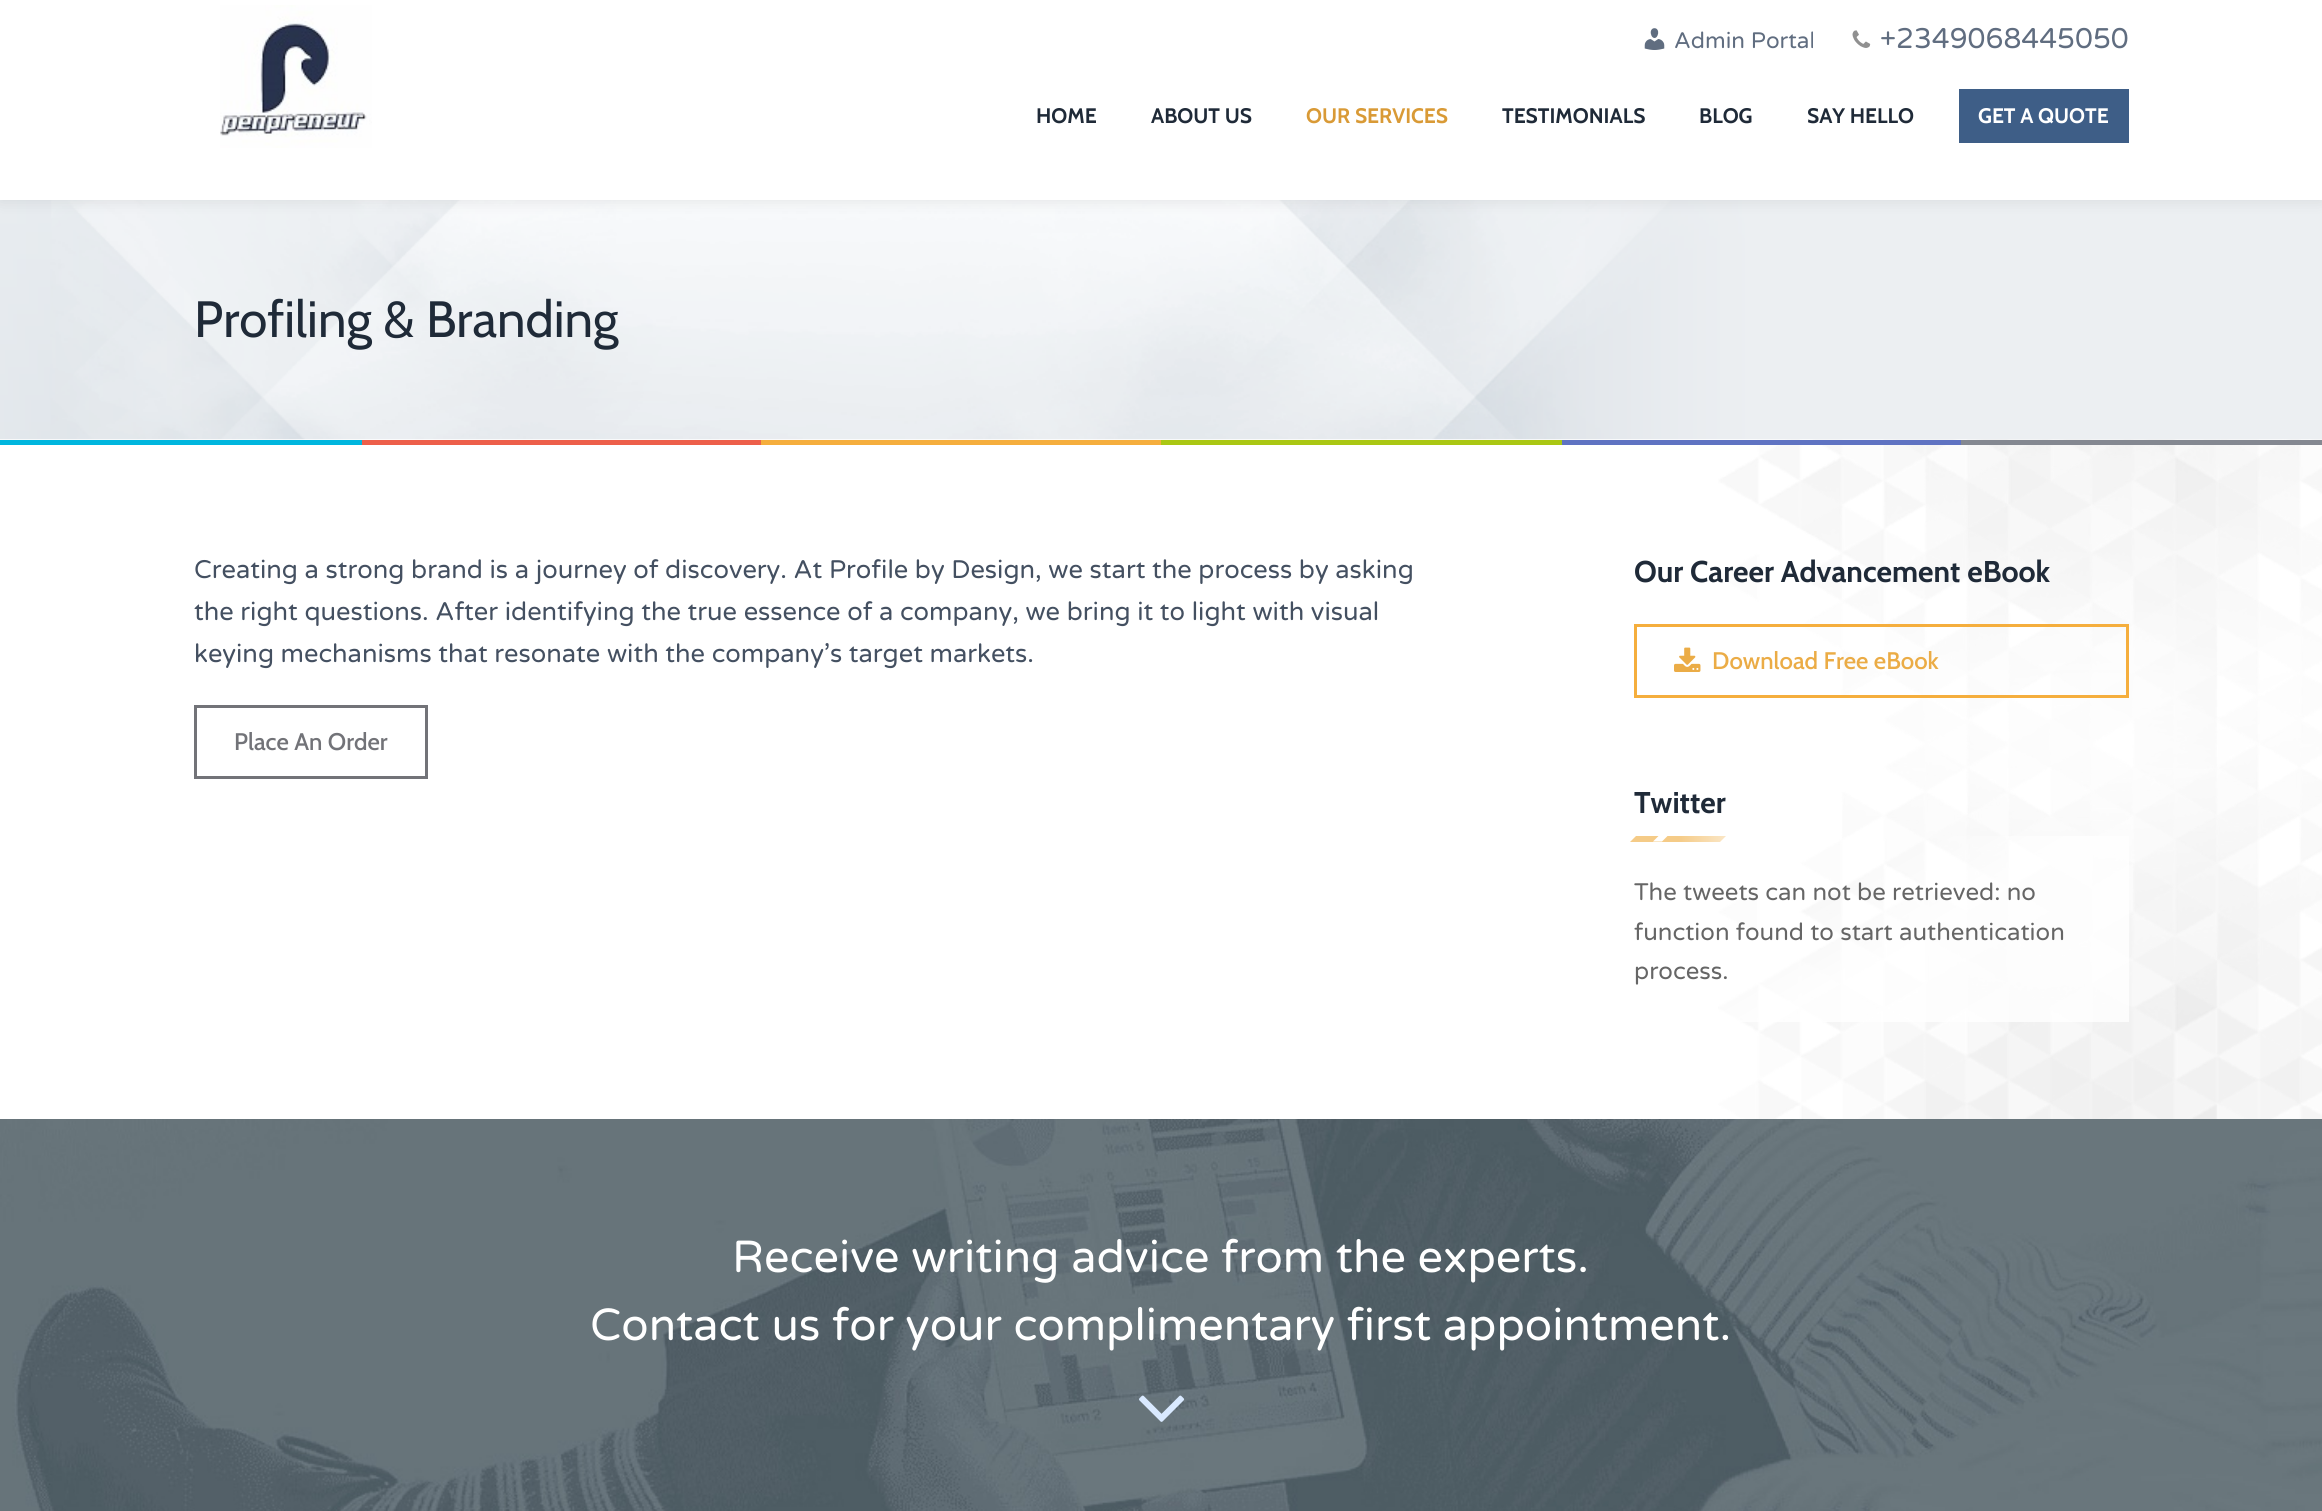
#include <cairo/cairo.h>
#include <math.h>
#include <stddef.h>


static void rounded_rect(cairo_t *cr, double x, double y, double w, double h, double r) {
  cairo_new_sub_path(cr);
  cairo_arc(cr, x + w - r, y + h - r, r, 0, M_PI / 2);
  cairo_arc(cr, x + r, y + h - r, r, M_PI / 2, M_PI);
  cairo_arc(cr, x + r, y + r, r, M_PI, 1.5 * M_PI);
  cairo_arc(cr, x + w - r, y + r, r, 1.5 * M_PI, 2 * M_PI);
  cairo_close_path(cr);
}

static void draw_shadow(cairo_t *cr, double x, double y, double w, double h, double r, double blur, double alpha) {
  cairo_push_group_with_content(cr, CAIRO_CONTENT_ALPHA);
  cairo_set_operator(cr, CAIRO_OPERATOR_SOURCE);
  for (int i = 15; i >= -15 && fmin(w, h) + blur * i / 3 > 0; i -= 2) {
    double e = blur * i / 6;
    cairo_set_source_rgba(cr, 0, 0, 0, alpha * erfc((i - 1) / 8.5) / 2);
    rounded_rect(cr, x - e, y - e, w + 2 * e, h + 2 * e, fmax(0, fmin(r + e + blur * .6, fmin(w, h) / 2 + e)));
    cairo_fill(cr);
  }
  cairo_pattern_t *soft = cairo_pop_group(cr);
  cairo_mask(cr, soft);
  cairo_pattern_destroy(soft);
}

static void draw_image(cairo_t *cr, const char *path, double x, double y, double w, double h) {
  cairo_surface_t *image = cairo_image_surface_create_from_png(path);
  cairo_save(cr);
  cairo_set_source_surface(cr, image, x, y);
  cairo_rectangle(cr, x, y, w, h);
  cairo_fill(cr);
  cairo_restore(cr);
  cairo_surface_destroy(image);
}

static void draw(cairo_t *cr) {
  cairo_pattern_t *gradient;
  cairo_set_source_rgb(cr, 1, 1, 1);
  cairo_paint(cr);
  draw_image(cr, "images/1.png", 1718, 439, 604, 680);
  draw_image(cr, "images/5.png", 0, 200, 2322, 240);
  cairo_set_source_rgb(cr, 0, 0, 0);
  draw_shadow(cr, 0, 0, 2322, 200, 0, 7.5, 0.1);
  cairo_set_source_rgb(cr, 1, 1, 1);
  cairo_rectangle(cr, 0, 0, 2322, 200);
  cairo_fill(cr);
  draw_image(cr, "images/2.png", 220, 5, 152, 143);
  draw_image(cr, "images/3.png", 1644, 28, 21, 22);
  draw_image(cr, "images/4.png", 1852, 30, 19, 18);
  cairo_set_source_rgb(cr, 62 / 255.0, 94 / 255.0, 135 / 255.0);
  cairo_rectangle(cr, 1959, 89, 170, 54);
  cairo_fill(cr);
  cairo_set_source_rgb(cr, 0, 182 / 255.0, 222 / 255.0);
  cairo_rectangle(cr, 0, 440, 362, 5);
  cairo_fill(cr);
  cairo_set_source_rgb(cr, 237 / 255.0, 95 / 255.0, 74 / 255.0);
  cairo_rectangle(cr, 362, 440, 399, 5);
  cairo_fill(cr);
  cairo_set_source_rgb(cr, 245 / 255.0, 174 / 255.0, 61 / 255.0);
  cairo_rectangle(cr, 761, 440, 400, 5);
  cairo_fill(cr);
  cairo_set_source_rgb(cr, 170 / 255.0, 199 / 255.0, 19 / 255.0);
  cairo_rectangle(cr, 1161, 440, 401, 5);
  cairo_fill(cr);
  cairo_set_source_rgb(cr, 95 / 255.0, 115 / 255.0, 194 / 255.0);
  cairo_rectangle(cr, 1562, 440, 399, 5);
  cairo_fill(cr);
  cairo_set_source_rgb(cr, 132 / 255.0, 136 / 255.0, 145 / 255.0);
  cairo_rectangle(cr, 1961, 440, 361, 5);
  cairo_fill(cr);
  cairo_rectangle(cr, 195.5, 706.5, 231, 71);
  cairo_set_source_rgb(cr, 114 / 255.0, 115 / 255.0, 120 / 255.0);
  cairo_set_line_width(cr, 3);
  cairo_stroke(cr);
  cairo_rectangle(cr, 1635.5, 625.5, 492, 71);
  cairo_set_source_rgb(cr, 245 / 255.0, 174 / 255.0, 61 / 255.0);
  cairo_stroke(cr);
  draw_image(cr, "images/6.png", 1674, 647, 27, 25);
  gradient = cairo_pattern_create_linear(1779, 752, 1983, 1105);
  cairo_pattern_add_color_stop_rgba(gradient, 0.37, 1, 1, 1, 0);
  cairo_pattern_add_color_stop_rgba(gradient, 0.55, 1, 1, 1, 0.8);
  cairo_set_source(cr, gradient);
  cairo_pattern_destroy(gradient);
  cairo_rectangle(cr, 1719, 836, 410, 186);
  cairo_fill(cr);
  gradient = cairo_pattern_create_linear(1634, 839, 1724, 839);
  cairo_pattern_add_color_stop_rgba(gradient, 0.5, 245 / 255.0, 203 / 255.0, 135 / 255.0, 1);
  cairo_pattern_add_color_stop_rgba(gradient, 1, 250 / 255.0, 229 / 255.0, 195 / 255.0, 1);
  cairo_set_source(cr, gradient);
  cairo_pattern_destroy(gradient);
  cairo_new_path(cr);
  cairo_move_to(cr, 1636, 836);
  cairo_line_to(cr, 1726, 836);
  cairo_line_to(cr, 1720, 842);
  cairo_line_to(cr, 1630, 842);
  cairo_close_path(cr);
  cairo_fill(cr);
  cairo_set_source_rgb(cr, 1, 1, 1);
  cairo_new_path(cr);
  cairo_move_to(cr, 1659, 835.5);
  cairo_line_to(cr, 1668, 835.5);
  cairo_line_to(cr, 1662, 841.5);
  cairo_line_to(cr, 1653, 841.5);
  cairo_close_path(cr);
  cairo_fill(cr);
  draw_image(cr, "images/7.png", 0, 1119, 2322, 392);
  draw_image(cr, "images/8.png", 1139, 1395, 46, 27);
  cairo_select_font_face(cr, "Varela Round", CAIRO_FONT_SLANT_NORMAL, CAIRO_FONT_WEIGHT_NORMAL);
  cairo_set_font_size(cr, 22.5);
  cairo_set_source_rgb(cr, 96 / 255.0, 109 / 255.0, 128 / 255.0);
  cairo_move_to(cr, 1674, 48);
  cairo_show_text(cr, "Admin Portal");
  cairo_set_font_size(cr, 28.5);
  cairo_move_to(cr, 1880, 48);
  cairo_show_text(cr, "+2349068445050");
  cairo_select_font_face(cr, "Cabin", CAIRO_FONT_SLANT_NORMAL, CAIRO_FONT_WEIGHT_BOLD);
  cairo_set_font_size(cr, 21);
  cairo_set_source_rgb(cr, 31 / 255.0, 42 / 255.0, 56 / 255.0);
  cairo_move_to(cr, 1036, 123);
  cairo_show_text(cr, "HOME");
  cairo_move_to(cr, 1151, 123);
  cairo_show_text(cr, "ABOUT US");
  cairo_set_source_rgb(cr, 217 / 255.0, 154 / 255.0, 54 / 255.0);
  cairo_move_to(cr, 1306, 123);
  cairo_show_text(cr, "OUR SERVICES");
  cairo_set_source_rgb(cr, 31 / 255.0, 42 / 255.0, 56 / 255.0);
  cairo_move_to(cr, 1502, 123);
  cairo_show_text(cr, "TESTIMONIALS");
  cairo_move_to(cr, 1699, 123);
  cairo_show_text(cr, "BLOG");
  cairo_move_to(cr, 1807, 123);
  cairo_show_text(cr, "SAY HELLO");
  cairo_set_source_rgb(cr, 1, 1, 1);
  cairo_move_to(cr, 1978, 123);
  cairo_show_text(cr, "GET A QUOTE");
  cairo_select_font_face(cr, "Cabin", CAIRO_FONT_SLANT_NORMAL, CAIRO_FONT_WEIGHT_NORMAL);
  cairo_set_font_size(cr, 51);
  cairo_set_source_rgb(cr, 31 / 255.0, 42 / 255.0, 56 / 255.0);
  cairo_move_to(cr, 194, 337);
  cairo_show_text(cr, "Profiling & Branding");
  cairo_select_font_face(cr, "Varela Round", CAIRO_FONT_SLANT_NORMAL, CAIRO_FONT_WEIGHT_NORMAL);
  cairo_set_font_size(cr, 25.5);
  cairo_set_source_rgb(cr, 68 / 255.0, 80 / 255.0, 97 / 255.0);
  cairo_move_to(cr, 194, 578);
  cairo_show_text(cr, "Creating a strong brand is a journey of discovery. At Profile by Design, we start the process by asking");
  cairo_move_to(cr, 194, 620);
  cairo_show_text(cr, "the right questions. After identifying the true essence of a company, we bring it to light with visual");
  cairo_move_to(cr, 194, 662);
  cairo_show_text(cr, "keying mechanisms that resonate with the company’s target markets.");
  cairo_select_font_face(cr, "Cabin Medium", CAIRO_FONT_SLANT_NORMAL, CAIRO_FONT_WEIGHT_NORMAL);
  cairo_set_font_size(cr, 24);
  cairo_set_source_rgb(cr, 114 / 255.0, 115 / 255.0, 120 / 255.0);
  cairo_move_to(cr, 234, 750);
  cairo_show_text(cr, "Place An Order");
  cairo_select_font_face(cr, "Cabin", CAIRO_FONT_SLANT_NORMAL, CAIRO_FONT_WEIGHT_BOLD);
  cairo_set_font_size(cr, 30);
  cairo_set_source_rgb(cr, 31 / 255.0, 42 / 255.0, 56 / 255.0);
  cairo_move_to(cr, 1634, 582);
  cairo_show_text(cr, "Our Career Advancement eBook");
  cairo_select_font_face(cr, "Cabin Medium", CAIRO_FONT_SLANT_NORMAL, CAIRO_FONT_WEIGHT_NORMAL);
  cairo_set_font_size(cr, 24);
  cairo_set_source_rgb(cr, 235 / 255.0, 172 / 255.0, 70 / 255.0);
  cairo_move_to(cr, 1712, 669);
  cairo_show_text(cr, "Download Free eBook");
  cairo_select_font_face(cr, "Cabin", CAIRO_FONT_SLANT_NORMAL, CAIRO_FONT_WEIGHT_BOLD);
  cairo_set_font_size(cr, 30);
  cairo_set_source_rgb(cr, 31 / 255.0, 42 / 255.0, 56 / 255.0);
  cairo_move_to(cr, 1634, 813);
  cairo_show_text(cr, "Twitter");
  cairo_select_font_face(cr, "Varela Round", CAIRO_FONT_SLANT_NORMAL, CAIRO_FONT_WEIGHT_NORMAL);
  cairo_set_font_size(cr, 24);
  cairo_set_source_rgb(cr, 102 / 255.0, 102 / 255.0, 102 / 255.0);
  cairo_move_to(cr, 1634, 900);
  cairo_show_text(cr, "The tweets can not be retrieved: no");
  cairo_move_to(cr, 1634, 940);
  cairo_show_text(cr, "function found to start authentication");
  cairo_move_to(cr, 1634, 979);
  cairo_show_text(cr, "process.");
  cairo_set_font_size(cr, 45);
  cairo_set_source_rgb(cr, 1, 1, 1);
  cairo_move_to(cr, 732, 1272);
  cairo_show_text(cr, "Receive writing advice from the experts.");
  cairo_move_to(cr, 590, 1340);
  cairo_show_text(cr, "Contact us for your complimentary first appointment.");
}

int main(void) {
  cairo_surface_t *surface = cairo_image_surface_create(CAIRO_FORMAT_RGB24, 2322, 1511);
  cairo_t *cr = cairo_create(surface);
  cairo_font_options_t *options = cairo_font_options_create();
  cairo_font_options_set_hint_metrics(options, CAIRO_HINT_METRICS_OFF);
  cairo_font_options_set_hint_style(options, CAIRO_HINT_STYLE_NONE);
  cairo_set_font_options(cr, options);
  cairo_set_miter_limit(cr, 4);
  draw(cr);
  cairo_surface_write_to_png(surface, "out.png");
  cairo_font_options_destroy(options);
  cairo_destroy(cr);
  cairo_surface_destroy(surface);
  return 0;
}
